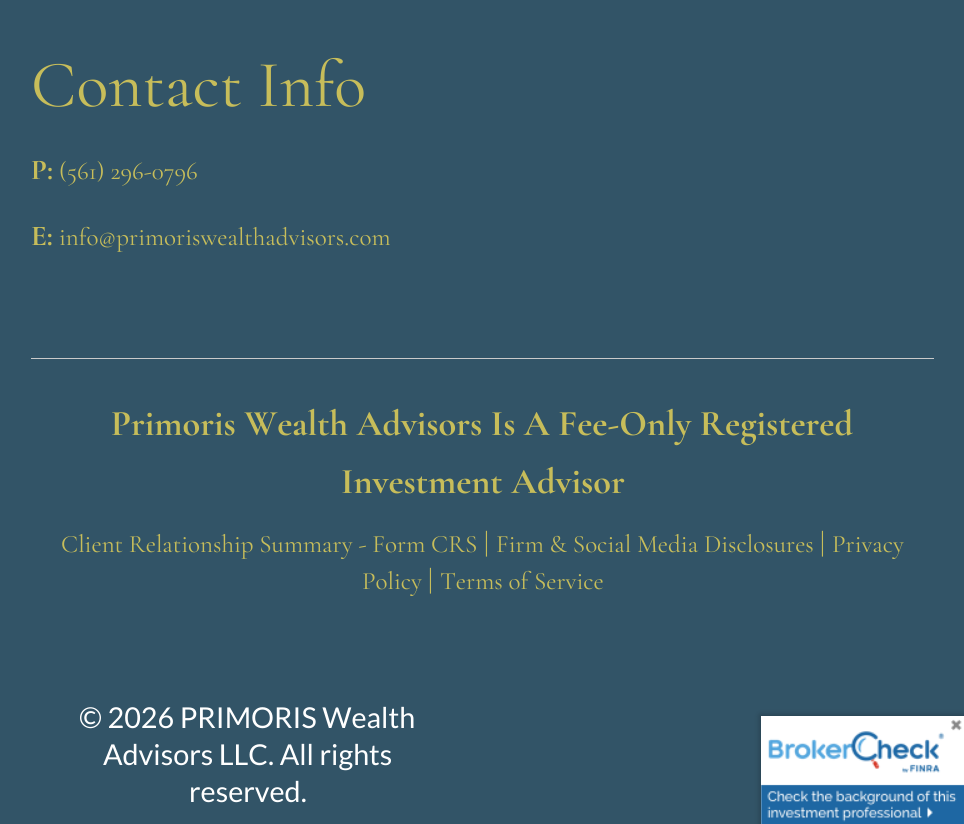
#include <cairo/cairo.h>
#include <math.h>
#include <stddef.h>


static void rounded_rect(cairo_t *cr, double x, double y, double w, double h, double r) {
  cairo_new_sub_path(cr);
  cairo_arc(cr, x + w - r, y + h - r, r, 0, M_PI / 2);
  cairo_arc(cr, x + r, y + h - r, r, M_PI / 2, M_PI);
  cairo_arc(cr, x + r, y + r, r, M_PI, 1.5 * M_PI);
  cairo_arc(cr, x + w - r, y + r, r, 1.5 * M_PI, 2 * M_PI);
  cairo_close_path(cr);
}

static void draw_shadow(cairo_t *cr, double x, double y, double w, double h, double r, double blur, double alpha) {
  cairo_push_group_with_content(cr, CAIRO_CONTENT_ALPHA);
  cairo_set_operator(cr, CAIRO_OPERATOR_SOURCE);
  for (int i = 15; i >= -15 && fmin(w, h) + blur * i / 3 > 0; i -= 2) {
    double e = blur * i / 6;
    cairo_set_source_rgba(cr, 0, 0, 0, alpha * erfc((i - 1) / 8.5) / 2);
    rounded_rect(cr, x - e, y - e, w + 2 * e, h + 2 * e, fmax(0, fmin(r + e + blur * .6, fmin(w, h) / 2 + e)));
    cairo_fill(cr);
  }
  cairo_pattern_t *soft = cairo_pop_group(cr);
  cairo_mask(cr, soft);
  cairo_pattern_destroy(soft);
}

static void draw_image(cairo_t *cr, const char *path, double x, double y, double w, double h) {
  cairo_surface_t *image = cairo_image_surface_create_from_png(path);
  cairo_save(cr);
  cairo_set_source_surface(cr, image, x, y);
  cairo_rectangle(cr, x, y, w, h);
  cairo_fill(cr);
  cairo_restore(cr);
  cairo_surface_destroy(image);
}

static void draw(cairo_t *cr) {
  cairo_set_source_rgb(cr, 50 / 255.0, 84 / 255.0, 103 / 255.0);
  cairo_paint(cr);
  cairo_set_source_rgb(cr, 202 / 255.0, 202 / 255.0, 202 / 255.0);
  cairo_rectangle(cr, 31, 358, 903, 1);
  cairo_fill(cr);
  cairo_set_source_rgb(cr, 1, 1, 1);
  cairo_rectangle(cr, 761, 716, 203, 108);
  cairo_fill(cr);
  cairo_save(cr);
  cairo_set_fill_rule(cr, CAIRO_FILL_RULE_EVEN_ODD);
  cairo_new_path(cr);
  cairo_move_to(cr, 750, 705);
  cairo_line_to(cr, 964, 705);
  cairo_line_to(cr, 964, 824);
  cairo_line_to(cr, 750, 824);
  cairo_close_path(cr);
  cairo_move_to(cr, 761, 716);
  cairo_line_to(cr, 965, 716);
  cairo_line_to(cr, 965, 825);
  cairo_line_to(cr, 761, 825);
  cairo_close_path(cr);
  cairo_clip(cr);
  cairo_set_source_rgb(cr, 0, 0, 0);
  draw_shadow(cr, 760, 715, 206, 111, 0, 3, 0.25);
  cairo_restore(cr);
  draw_image(cr, "images/1.png", 761, 719, 203, 105);
  cairo_select_font_face(cr, "Cormorant Garamond", CAIRO_FONT_SLANT_NORMAL, CAIRO_FONT_WEIGHT_NORMAL);
  cairo_set_font_size(cr, 66.25);
  cairo_set_source_rgb(cr, 199 / 255.0, 189 / 255.0, 90 / 255.0);
  cairo_move_to(cr, 31, 106);
  cairo_show_text(cr, "Contact Info");
  cairo_select_font_face(cr, "Cormorant Garamond", CAIRO_FONT_SLANT_NORMAL, CAIRO_FONT_WEIGHT_BOLD);
  cairo_set_font_size(cr, 28.75);
  cairo_move_to(cr, 31, 179);
  cairo_show_text(cr, "P:");
  cairo_select_font_face(cr, "Cormorant Garamond", CAIRO_FONT_SLANT_NORMAL, CAIRO_FONT_WEIGHT_NORMAL);
  cairo_set_font_size(cr, 25);
  cairo_move_to(cr, 59, 179);
  cairo_show_text(cr, "(561) 296-0796");
  cairo_select_font_face(cr, "Cormorant Garamond", CAIRO_FONT_SLANT_NORMAL, CAIRO_FONT_WEIGHT_BOLD);
  cairo_set_font_size(cr, 28.75);
  cairo_move_to(cr, 31, 245);
  cairo_show_text(cr, "E:");
  cairo_select_font_face(cr, "Cormorant Garamond", CAIRO_FONT_SLANT_NORMAL, CAIRO_FONT_WEIGHT_NORMAL);
  cairo_set_font_size(cr, 25);
  cairo_move_to(cr, 59, 245);
  cairo_show_text(cr, "info@primoriswealthadvisors.com");
  cairo_select_font_face(cr, "Cormorant Garamond", CAIRO_FONT_SLANT_NORMAL, CAIRO_FONT_WEIGHT_BOLD);
  cairo_set_font_size(cr, 36.25);
  cairo_move_to(cr, 111, 435);
  cairo_show_text(cr, "Primoris Wealth Advisors Is A Fee-Only Registered");
  cairo_move_to(cr, 341, 493);
  cairo_show_text(cr, "Investment Advisor");
  cairo_select_font_face(cr, "Cormorant Garamond", CAIRO_FONT_SLANT_NORMAL, CAIRO_FONT_WEIGHT_NORMAL);
  cairo_set_font_size(cr, 25);
  cairo_move_to(cr, 61, 552);
  cairo_show_text(cr, "Client Relationship Summary - Form CRS");
  cairo_set_font_size(cr, 28.75);
  cairo_move_to(cr, 484, 552);
  cairo_show_text(cr, "|");
  cairo_set_font_size(cr, 25);
  cairo_move_to(cr, 496, 552);
  cairo_show_text(cr, "Firm & Social Media Disclosures");
  cairo_set_font_size(cr, 28.75);
  cairo_move_to(cr, 820, 552);
  cairo_show_text(cr, "|");
  cairo_set_font_size(cr, 25);
  cairo_move_to(cr, 832, 552);
  cairo_show_text(cr, "Privacy");
  cairo_move_to(cr, 362, 589);
  cairo_show_text(cr, "Policy");
  cairo_set_font_size(cr, 28.75);
  cairo_move_to(cr, 428, 589);
  cairo_show_text(cr, "|");
  cairo_set_font_size(cr, 25);
  cairo_move_to(cr, 440, 589);
  cairo_show_text(cr, "Terms of Service");
  cairo_select_font_face(cr, "Lato", CAIRO_FONT_SLANT_NORMAL, CAIRO_FONT_WEIGHT_NORMAL);
  cairo_set_font_size(cr, 28.75);
  cairo_set_source_rgb(cr, 1, 1, 1);
  cairo_move_to(cr, 79, 728);
  cairo_show_text(cr, "© 2026 PRIMORIS Wealth");
  cairo_move_to(cr, 103, 765);
  cairo_show_text(cr, "Advisors LLC. All rights");
  cairo_move_to(cr, 189, 802);
  cairo_show_text(cr, "reserved.");
}

int main(void) {
  cairo_surface_t *surface = cairo_image_surface_create(CAIRO_FORMAT_RGB24, 964, 824);
  cairo_t *cr = cairo_create(surface);
  cairo_font_options_t *options = cairo_font_options_create();
  cairo_font_options_set_hint_metrics(options, CAIRO_HINT_METRICS_OFF);
  cairo_font_options_set_hint_style(options, CAIRO_HINT_STYLE_NONE);
  cairo_set_font_options(cr, options);
  cairo_set_miter_limit(cr, 4);
  draw(cr);
  cairo_surface_write_to_png(surface, "out.png");
  cairo_font_options_destroy(options);
  cairo_destroy(cr);
  cairo_surface_destroy(surface);
  return 0;
}
